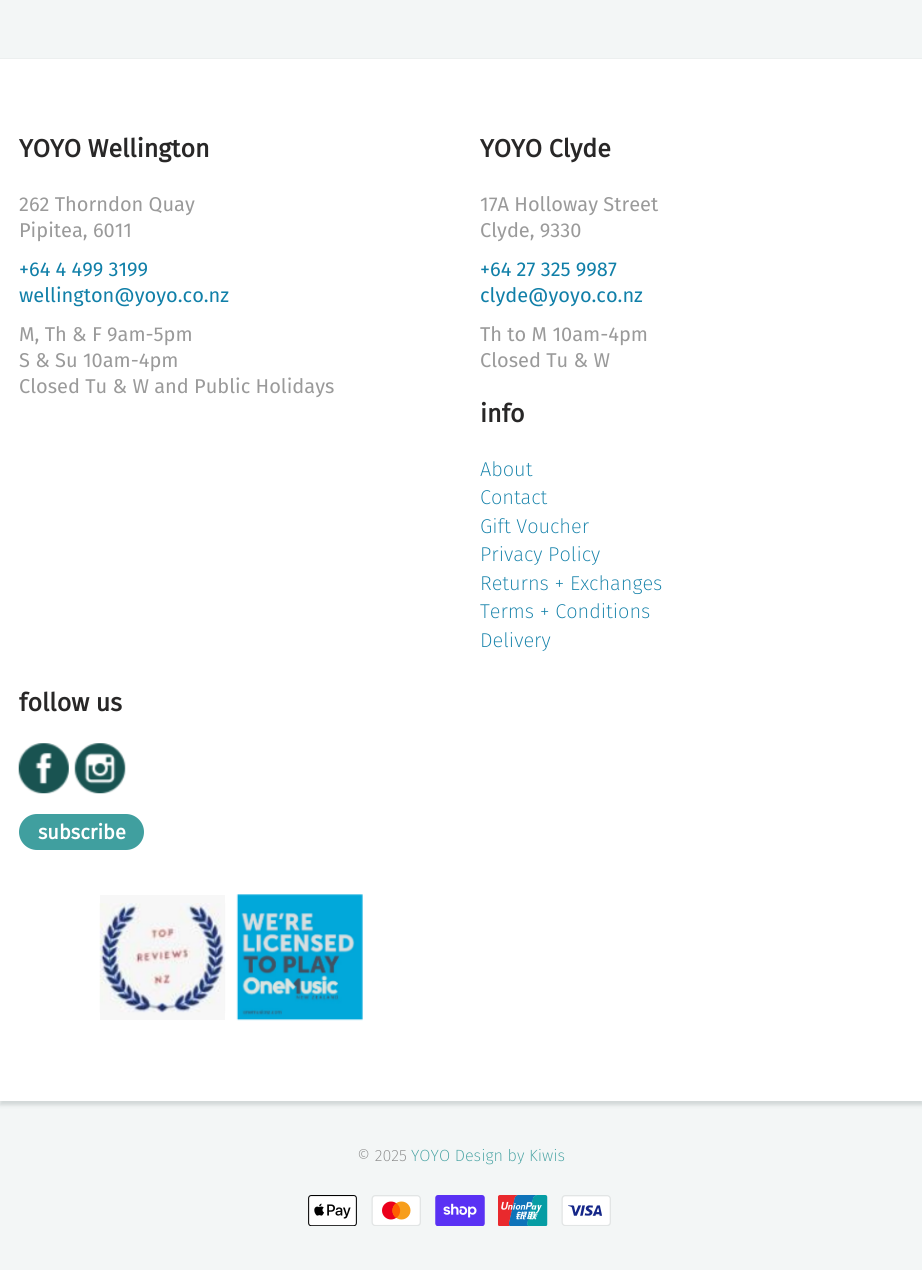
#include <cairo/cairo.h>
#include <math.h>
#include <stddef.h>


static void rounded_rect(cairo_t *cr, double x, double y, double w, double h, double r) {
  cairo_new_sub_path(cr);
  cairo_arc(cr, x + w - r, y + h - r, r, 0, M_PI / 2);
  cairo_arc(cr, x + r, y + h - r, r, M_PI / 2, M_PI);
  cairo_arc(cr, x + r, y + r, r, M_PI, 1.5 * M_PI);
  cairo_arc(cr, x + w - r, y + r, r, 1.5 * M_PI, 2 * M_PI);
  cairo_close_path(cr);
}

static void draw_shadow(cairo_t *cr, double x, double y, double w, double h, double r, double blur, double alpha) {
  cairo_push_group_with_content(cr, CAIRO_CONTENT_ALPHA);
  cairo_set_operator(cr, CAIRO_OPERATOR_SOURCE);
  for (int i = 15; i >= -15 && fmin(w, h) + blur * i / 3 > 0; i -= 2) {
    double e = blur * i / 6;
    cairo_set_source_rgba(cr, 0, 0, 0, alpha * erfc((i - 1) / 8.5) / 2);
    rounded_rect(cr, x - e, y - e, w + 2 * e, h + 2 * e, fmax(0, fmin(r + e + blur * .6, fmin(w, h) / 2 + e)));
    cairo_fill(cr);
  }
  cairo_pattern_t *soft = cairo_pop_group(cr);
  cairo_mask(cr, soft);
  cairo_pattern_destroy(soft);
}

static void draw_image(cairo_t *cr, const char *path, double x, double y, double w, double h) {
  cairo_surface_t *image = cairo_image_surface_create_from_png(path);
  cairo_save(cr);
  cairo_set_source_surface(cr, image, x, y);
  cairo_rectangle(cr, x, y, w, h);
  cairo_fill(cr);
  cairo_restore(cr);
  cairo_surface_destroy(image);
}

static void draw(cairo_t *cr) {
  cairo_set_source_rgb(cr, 1, 1, 1);
  cairo_paint(cr);
  cairo_set_source_rgb(cr, 243 / 255.0, 246 / 255.0, 246 / 255.0);
  cairo_rectangle(cr, 0, 0, 922, 58);
  cairo_fill(cr);
  cairo_rectangle(cr, 0, 1101, 922, 169);
  cairo_fill(cr);
  cairo_save(cr);
  cairo_rectangle(cr, 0, 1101, 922, 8);
  cairo_clip(cr);
  cairo_set_source_rgb(cr, 209 / 255.0, 215 / 255.0, 215 / 255.0);
  draw_shadow(cr, 0, 61, 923, 1044, 0, 2, 1);
  cairo_restore(cr);
  cairo_set_source_rgb(cr, 236 / 255.0, 239 / 255.0, 239 / 255.0);
  cairo_rectangle(cr, 0, 58, 922, 1);
  cairo_fill(cr);
  draw_image(cr, "images/1.png", 18, 743, 51, 51);
  draw_image(cr, "images/2.png", 74, 743, 52, 51);
  cairo_set_source_rgb(cr, 64 / 255.0, 159 / 255.0, 159 / 255.0);
  rounded_rect(cr, 19, 814, 125, 36, 18);
  cairo_fill(cr);
  cairo_set_source_rgb(cr, 247 / 255.0, 247 / 255.0, 247 / 255.0);
  cairo_rectangle(cr, 100, 895, 125, 125);
  cairo_fill(cr);
  draw_image(cr, "images/3.png", 99, 903, 127, 110);
  draw_image(cr, "images/4.png", 236, 894, 127, 127);
  draw_image(cr, "images/5.png", 308, 1195, 49, 31);
  draw_image(cr, "images/6.png", 371, 1195, 50, 31);
  draw_image(cr, "images/7.png", 435, 1195, 50, 31);
  draw_image(cr, "images/8.png", 498, 1195, 50, 31);
  draw_image(cr, "images/9.png", 561, 1195, 50, 31);
  cairo_select_font_face(cr, "Fira Sans", CAIRO_FONT_SLANT_NORMAL, CAIRO_FONT_WEIGHT_BOLD);
  cairo_set_font_size(cr, 25);
  cairo_set_source_rgb(cr, 40 / 255.0, 39 / 255.0, 39 / 255.0);
  cairo_move_to(cr, 19, 157);
  cairo_show_text(cr, "YOYO Wellington");
  cairo_select_font_face(cr, "Fira Sans", CAIRO_FONT_SLANT_NORMAL, CAIRO_FONT_WEIGHT_NORMAL);
  cairo_set_font_size(cr, 20);
  cairo_set_source_rgb(cr, 154 / 255.0, 154 / 255.0, 154 / 255.0);
  cairo_move_to(cr, 19, 211);
  cairo_show_text(cr, "262 Thorndon Quay");
  cairo_move_to(cr, 19, 237);
  cairo_show_text(cr, "Pipitea, 6011");
  cairo_set_source_rgb(cr, 16 / 255.0, 127 / 255.0, 168 / 255.0);
  cairo_move_to(cr, 19, 276);
  cairo_show_text(cr, "+64 4 499 3199");
  cairo_move_to(cr, 19, 302);
  cairo_show_text(cr, "wellington@yoyo.co.nz");
  cairo_set_source_rgb(cr, 154 / 255.0, 154 / 255.0, 154 / 255.0);
  cairo_move_to(cr, 19, 341);
  cairo_show_text(cr, "M, Th & F 9am-5pm");
  cairo_move_to(cr, 19, 367);
  cairo_show_text(cr, "S & Su 10am-4pm");
  cairo_move_to(cr, 19, 393);
  cairo_show_text(cr, "Closed Tu & W and Public Holidays");
  cairo_select_font_face(cr, "Fira Sans", CAIRO_FONT_SLANT_NORMAL, CAIRO_FONT_WEIGHT_BOLD);
  cairo_set_font_size(cr, 25);
  cairo_set_source_rgb(cr, 40 / 255.0, 39 / 255.0, 39 / 255.0);
  cairo_move_to(cr, 480, 157);
  cairo_show_text(cr, "YOYO Clyde");
  cairo_select_font_face(cr, "Fira Sans", CAIRO_FONT_SLANT_NORMAL, CAIRO_FONT_WEIGHT_NORMAL);
  cairo_set_font_size(cr, 20);
  cairo_set_source_rgb(cr, 154 / 255.0, 154 / 255.0, 154 / 255.0);
  cairo_move_to(cr, 480, 211);
  cairo_show_text(cr, "17A Holloway Street");
  cairo_move_to(cr, 480, 237);
  cairo_show_text(cr, "Clyde, 9330");
  cairo_set_source_rgb(cr, 16 / 255.0, 127 / 255.0, 168 / 255.0);
  cairo_move_to(cr, 480, 276);
  cairo_show_text(cr, "+64 27 325 9987");
  cairo_move_to(cr, 480, 302);
  cairo_show_text(cr, "clyde@yoyo.co.nz");
  cairo_set_source_rgb(cr, 154 / 255.0, 154 / 255.0, 154 / 255.0);
  cairo_move_to(cr, 480, 341);
  cairo_show_text(cr, "Th to M 10am-4pm");
  cairo_move_to(cr, 480, 367);
  cairo_show_text(cr, "Closed Tu & W");
  cairo_select_font_face(cr, "Fira Sans", CAIRO_FONT_SLANT_NORMAL, CAIRO_FONT_WEIGHT_BOLD);
  cairo_set_font_size(cr, 25);
  cairo_set_source_rgb(cr, 40 / 255.0, 39 / 255.0, 39 / 255.0);
  cairo_move_to(cr, 480, 422);
  cairo_show_text(cr, "info");
  cairo_select_font_face(cr, "Fira Sans Light", CAIRO_FONT_SLANT_NORMAL, CAIRO_FONT_WEIGHT_NORMAL);
  cairo_set_font_size(cr, 20);
  cairo_set_source_rgb(cr, 16 / 255.0, 127 / 255.0, 168 / 255.0);
  cairo_move_to(cr, 480, 476);
  cairo_show_text(cr, "About");
  cairo_move_to(cr, 480, 504);
  cairo_show_text(cr, "Contact");
  cairo_move_to(cr, 480, 533);
  cairo_show_text(cr, "Gift Voucher");
  cairo_move_to(cr, 480, 561);
  cairo_show_text(cr, "Privacy Policy");
  cairo_move_to(cr, 480, 590);
  cairo_show_text(cr, "Returns + Exchanges");
  cairo_move_to(cr, 480, 618);
  cairo_show_text(cr, "Terms + Conditions");
  cairo_move_to(cr, 480, 647);
  cairo_show_text(cr, "Delivery");
  cairo_select_font_face(cr, "Fira Sans", CAIRO_FONT_SLANT_NORMAL, CAIRO_FONT_WEIGHT_BOLD);
  cairo_set_font_size(cr, 25);
  cairo_set_source_rgb(cr, 40 / 255.0, 39 / 255.0, 39 / 255.0);
  cairo_move_to(cr, 19, 711);
  cairo_show_text(cr, "follow us");
  cairo_set_font_size(cr, 20);
  cairo_set_source_rgb(cr, 1, 1, 1);
  cairo_move_to(cr, 38, 839);
  cairo_show_text(cr, "subscribe");
  cairo_select_font_face(cr, "Fira Sans Light", CAIRO_FONT_SLANT_NORMAL, CAIRO_FONT_WEIGHT_NORMAL);
  cairo_set_font_size(cr, 16.25);
  cairo_set_source_rgb(cr, 137 / 255.0, 137 / 255.0, 137 / 255.0);
  cairo_move_to(cr, 357, 1161);
  cairo_show_text(cr, "© 2025");
  cairo_set_source_rgb(cr, 64 / 255.0, 159 / 255.0, 159 / 255.0);
  cairo_move_to(cr, 411, 1161);
  cairo_show_text(cr, "YOYO Design by Kiwis");
}

int main(void) {
  cairo_surface_t *surface = cairo_image_surface_create(CAIRO_FORMAT_RGB24, 922, 1270);
  cairo_t *cr = cairo_create(surface);
  cairo_font_options_t *options = cairo_font_options_create();
  cairo_font_options_set_hint_metrics(options, CAIRO_HINT_METRICS_OFF);
  cairo_font_options_set_hint_style(options, CAIRO_HINT_STYLE_NONE);
  cairo_set_font_options(cr, options);
  cairo_set_miter_limit(cr, 4);
  draw(cr);
  cairo_surface_write_to_png(surface, "out.png");
  cairo_font_options_destroy(options);
  cairo_destroy(cr);
  cairo_surface_destroy(surface);
  return 0;
}
